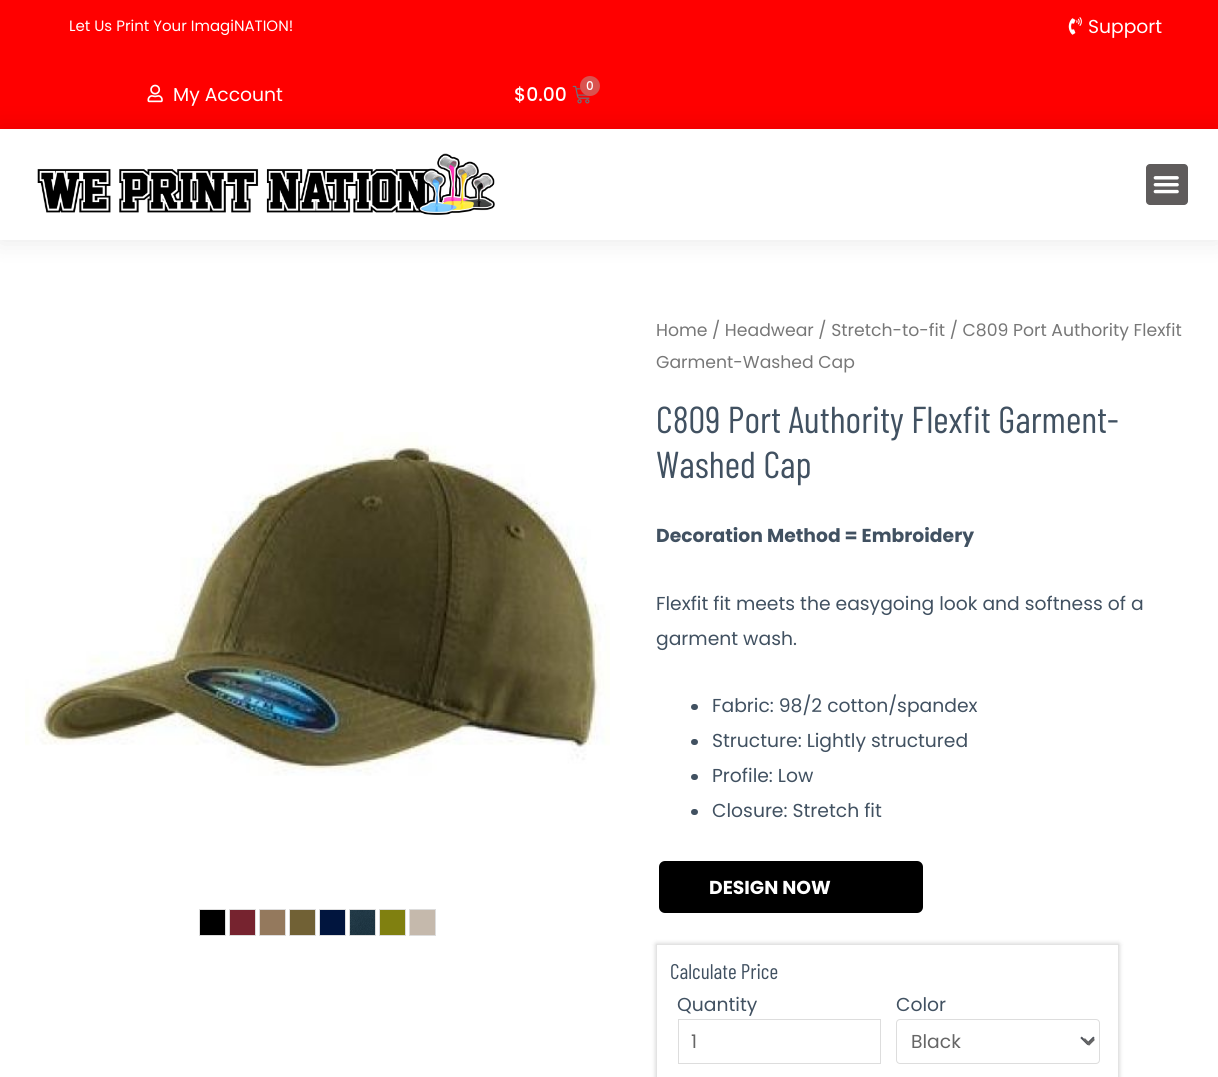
#include <cairo/cairo.h>
#include <math.h>
#include <stddef.h>


static void rounded_rect(cairo_t *cr, double x, double y, double w, double h, double r) {
  cairo_new_sub_path(cr);
  cairo_arc(cr, x + w - r, y + h - r, r, 0, M_PI / 2);
  cairo_arc(cr, x + r, y + h - r, r, M_PI / 2, M_PI);
  cairo_arc(cr, x + r, y + r, r, M_PI, 1.5 * M_PI);
  cairo_arc(cr, x + w - r, y + r, r, 1.5 * M_PI, 2 * M_PI);
  cairo_close_path(cr);
}

static void draw_shadow(cairo_t *cr, double x, double y, double w, double h, double r, double blur, double alpha) {
  cairo_push_group_with_content(cr, CAIRO_CONTENT_ALPHA);
  cairo_set_operator(cr, CAIRO_OPERATOR_SOURCE);
  for (int i = 15; i >= -15 && fmin(w, h) + blur * i / 3 > 0; i -= 2) {
    double e = blur * i / 6;
    cairo_set_source_rgba(cr, 0, 0, 0, alpha * erfc((i - 1) / 8.5) / 2);
    rounded_rect(cr, x - e, y - e, w + 2 * e, h + 2 * e, fmax(0, fmin(r + e + blur * .6, fmin(w, h) / 2 + e)));
    cairo_fill(cr);
  }
  cairo_pattern_t *soft = cairo_pop_group(cr);
  cairo_mask(cr, soft);
  cairo_pattern_destroy(soft);
}

static void draw_image(cairo_t *cr, const char *path, double x, double y, double w, double h) {
  cairo_surface_t *image = cairo_image_surface_create_from_png(path);
  cairo_save(cr);
  cairo_set_source_surface(cr, image, x, y);
  cairo_rectangle(cr, x, y, w, h);
  cairo_fill(cr);
  cairo_restore(cr);
  cairo_surface_destroy(image);
}

static void draw(cairo_t *cr) {
  cairo_set_source_rgb(cr, 1, 1, 1);
  cairo_paint(cr);
  cairo_set_source_rgb(cr, 1, 0, 0);
  cairo_rectangle(cr, 0, 0, 1218, 129);
  cairo_fill(cr);
  draw_image(cr, "images/1.png", 1068, 17, 14, 18);
  draw_image(cr, "images/2.png", 147, 84, 16, 19);
  draw_image(cr, "images/3.png", 572, 85, 18, 19);
  cairo_set_source_rgb(cr, 217 / 255.0, 83 / 255.0, 79 / 255.0);
  cairo_arc(cr, 590, 86, 10, 0, 2 * M_PI);
  cairo_fill(cr);
  cairo_set_source_rgb(cr, 0, 0, 0);
  draw_shadow(cr, 0, 129, 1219, 111, 0, 12.5, 0.1);
  cairo_set_source_rgb(cr, 1, 1, 1);
  cairo_rectangle(cr, 0, 129, 1218, 111);
  cairo_fill(cr);
  draw_image(cr, "images/4.png", 37, 153, 458, 62);
  cairo_set_source_rgb(cr, 95 / 255.0, 92 / 255.0, 92 / 255.0);
  rounded_rect(cr, 1146, 164, 42, 41, 4);
  cairo_fill(cr);
  draw_image(cr, "images/5.png", 1153, 176, 26, 18);
  draw_image(cr, "images/6.png", 25, 432, 585, 344);
  cairo_set_source_rgb(cr, 0, 0, 0);
  cairo_rectangle(cr, 199.5, 909.5, 26, 26);
  cairo_fill_preserve(cr);
  cairo_set_source_rgb(cr, 221 / 255.0, 221 / 255.0, 221 / 255.0);
  cairo_set_line_width(cr, 1);
  cairo_stroke(cr);
  cairo_set_source_rgb(cr, 118 / 255.0, 35 / 255.0, 47 / 255.0);
  cairo_rectangle(cr, 229.5, 909.5, 26, 26);
  cairo_fill_preserve(cr);
  cairo_set_source_rgb(cr, 221 / 255.0, 221 / 255.0, 221 / 255.0);
  cairo_stroke(cr);
  cairo_set_source_rgb(cr, 148 / 255.0, 121 / 255.0, 93 / 255.0);
  cairo_rectangle(cr, 259.5, 909.5, 26, 26);
  cairo_fill_preserve(cr);
  cairo_set_source_rgb(cr, 221 / 255.0, 221 / 255.0, 221 / 255.0);
  cairo_stroke(cr);
  cairo_set_source_rgb(cr, 113 / 255.0, 97 / 255.0, 53 / 255.0);
  cairo_rectangle(cr, 289.5, 909.5, 26, 26);
  cairo_fill_preserve(cr);
  cairo_set_source_rgb(cr, 221 / 255.0, 221 / 255.0, 221 / 255.0);
  cairo_stroke(cr);
  cairo_set_source_rgb(cr, 1 / 255.0, 21 / 255.0, 62 / 255.0);
  cairo_rectangle(cr, 319.5, 909.5, 26, 26);
  cairo_fill_preserve(cr);
  cairo_set_source_rgb(cr, 221 / 255.0, 221 / 255.0, 221 / 255.0);
  cairo_stroke(cr);
  draw_image(cr, "images/7.png", 350, 910, 25, 25);
  cairo_rectangle(cr, 349.5, 909.5, 26, 26);
  cairo_stroke(cr);
  cairo_set_source_rgb(cr, 128 / 255.0, 128 / 255.0, 16 / 255.0);
  cairo_rectangle(cr, 379.5, 909.5, 26, 26);
  cairo_fill_preserve(cr);
  cairo_set_source_rgb(cr, 221 / 255.0, 221 / 255.0, 221 / 255.0);
  cairo_stroke(cr);
  cairo_set_source_rgb(cr, 197 / 255.0, 185 / 255.0, 172 / 255.0);
  cairo_rectangle(cr, 409.5, 909.5, 26, 26);
  cairo_fill_preserve(cr);
  cairo_set_source_rgb(cr, 221 / 255.0, 221 / 255.0, 221 / 255.0);
  cairo_stroke(cr);
  cairo_set_source_rgb(cr, 65 / 255.0, 81 / 255.0, 97 / 255.0);
  rounded_rect(cr, 691, 704, 7, 6, 3);
  cairo_fill(cr);
  rounded_rect(cr, 691, 739, 7, 6, 3);
  cairo_fill(cr);
  rounded_rect(cr, 691, 774, 7, 6, 3);
  cairo_fill(cr);
  rounded_rect(cr, 691, 809, 7, 6, 3);
  cairo_fill(cr);
  cairo_set_source_rgb(cr, 0, 0, 0);
  rounded_rect(cr, 659, 861, 264, 52, 6);
  cairo_fill(cr);
  cairo_save(cr);
  cairo_set_fill_rule(cr, CAIRO_FILL_RULE_EVEN_ODD);
  cairo_new_path(cr);
  cairo_move_to(cr, 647, 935);
  cairo_line_to(cr, 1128, 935);
  cairo_line_to(cr, 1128, 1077);
  cairo_line_to(cr, 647, 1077);
  cairo_close_path(cr);
  cairo_move_to(cr, 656, 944);
  cairo_line_to(cr, 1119, 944);
  cairo_line_to(cr, 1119, 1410);
  cairo_line_to(cr, 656, 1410);
  cairo_close_path(cr);
  cairo_clip(cr);
  cairo_set_source_rgb(cr, 0, 0, 0);
  draw_shadow(cr, 656, 944, 463, 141, 0, 2.5, 0.2);
  cairo_restore(cr);
  cairo_rectangle(cr, 656.5, 944.5, 462, 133);
  cairo_set_source_rgba(cr, 200 / 255.0, 200 / 255.0, 200 / 255.0, 0.5);
  cairo_stroke(cr);
  cairo_rectangle(cr, 678.5, 1019.5, 202, 44);
  cairo_set_source_rgb(cr, 221 / 255.0, 221 / 255.0, 221 / 255.0);
  cairo_stroke(cr);
  draw_image(cr, "images/8.png", 1080, 1036, 15, 10);
  rounded_rect(cr, 896.5, 1019.5, 203, 44, 3.5);
  cairo_stroke(cr);
  cairo_new_path(cr);
  cairo_move_to(cr, 1084, 1039);
  cairo_line_to(cr, 1089, 1044);
  cairo_line_to(cr, 1094, 1039);
  cairo_set_source_rgb(cr, 102 / 255.0, 102 / 255.0, 102 / 255.0);
  cairo_set_line_width(cr, 2.5);
  cairo_stroke(cr);
  cairo_select_font_face(cr, "Poppins", CAIRO_FONT_SLANT_NORMAL, CAIRO_FONT_WEIGHT_NORMAL);
  cairo_set_font_size(cr, 15);
  cairo_set_source_rgb(cr, 1, 1, 1);
  cairo_move_to(cr, 69, 31);
  cairo_show_text(cr, "Let Us Print Your ImagiNATION!");
  cairo_set_font_size(cr, 18.75);
  cairo_move_to(cr, 1088, 33);
  cairo_show_text(cr, "Support");
  cairo_move_to(cr, 173, 101);
  cairo_show_text(cr, "My Account");
  cairo_select_font_face(cr, "Poppins Medium", CAIRO_FONT_SLANT_NORMAL, CAIRO_FONT_WEIGHT_NORMAL);
  cairo_set_font_size(cr, 12);
  cairo_move_to(cr, 586, 90);
  cairo_show_text(cr, "0");
  cairo_set_font_size(cr, 18.75);
  cairo_move_to(cr, 514, 101);
  cairo_show_text(cr, "$0.00");
  cairo_select_font_face(cr, "Poppins", CAIRO_FONT_SLANT_NORMAL, CAIRO_FONT_WEIGHT_NORMAL);
  cairo_set_font_size(cr, 17.25);
  cairo_set_source_rgb(cr, 119 / 255.0, 119 / 255.0, 119 / 255.0);
  cairo_move_to(cr, 656, 336);
  cairo_show_text(cr, "Home / Headwear / Stretch-to-fit / C809 Port Authority Flexfit");
  cairo_move_to(cr, 656, 368);
  cairo_show_text(cr, "Garment-Washed Cap");
  cairo_select_font_face(cr, "Barlow Condensed", CAIRO_FONT_SLANT_NORMAL, CAIRO_FONT_WEIGHT_NORMAL);
  cairo_set_font_size(cr, 37.5);
  cairo_set_source_rgb(cr, 65 / 255.0, 81 / 255.0, 97 / 255.0);
  cairo_move_to(cr, 656, 433);
  cairo_show_text(cr, "C809 Port Authority Flexfit Garment-");
  cairo_move_to(cr, 656, 478);
  cairo_show_text(cr, "Washed Cap");
  cairo_select_font_face(cr, "Poppins", CAIRO_FONT_SLANT_NORMAL, CAIRO_FONT_WEIGHT_BOLD);
  cairo_set_font_size(cr, 18.75);
  cairo_move_to(cr, 656, 542);
  cairo_show_text(cr, "Decoration Method = Embroidery");
  cairo_select_font_face(cr, "Poppins", CAIRO_FONT_SLANT_NORMAL, CAIRO_FONT_WEIGHT_NORMAL);
  cairo_move_to(cr, 656, 610);
  cairo_show_text(cr, "Flexfit fit meets the easygoing look and softness of a");
  cairo_move_to(cr, 656, 645);
  cairo_show_text(cr, "garment wash.");
  cairo_move_to(cr, 712, 712);
  cairo_show_text(cr, "Fabric: 98/2 cotton/spandex");
  cairo_move_to(cr, 712, 747);
  cairo_show_text(cr, "Structure: Lightly structured");
  cairo_move_to(cr, 712, 782);
  cairo_show_text(cr, "Profile: Low");
  cairo_move_to(cr, 712, 817);
  cairo_show_text(cr, "Closure: Stretch fit");
  cairo_select_font_face(cr, "Poppins", CAIRO_FONT_SLANT_NORMAL, CAIRO_FONT_WEIGHT_BOLD);
  cairo_set_source_rgb(cr, 1, 1, 1);
  cairo_move_to(cr, 709, 894);
  cairo_show_text(cr, "DESIGN NOW");
  cairo_select_font_face(cr, "Barlow Condensed", CAIRO_FONT_SLANT_NORMAL, CAIRO_FONT_WEIGHT_NORMAL);
  cairo_set_font_size(cr, 21.25);
  cairo_set_source_rgb(cr, 65 / 255.0, 81 / 255.0, 97 / 255.0);
  cairo_move_to(cr, 670, 979);
  cairo_show_text(cr, "Calculate Price");
  cairo_select_font_face(cr, "Poppins", CAIRO_FONT_SLANT_NORMAL, CAIRO_FONT_WEIGHT_NORMAL);
  cairo_set_font_size(cr, 18.75);
  cairo_move_to(cr, 677, 1011);
  cairo_show_text(cr, "Quantity");
  cairo_set_source_rgb(cr, 102 / 255.0, 102 / 255.0, 102 / 255.0);
  cairo_move_to(cr, 691, 1048);
  cairo_show_text(cr, "1");
  cairo_set_source_rgb(cr, 65 / 255.0, 81 / 255.0, 97 / 255.0);
  cairo_move_to(cr, 896, 1011);
  cairo_show_text(cr, "Color");
  cairo_set_source_rgb(cr, 102 / 255.0, 102 / 255.0, 102 / 255.0);
  cairo_move_to(cr, 911, 1048);
  cairo_show_text(cr, "Black");
}

int main(void) {
  cairo_surface_t *surface = cairo_image_surface_create(CAIRO_FORMAT_RGB24, 1218, 1077);
  cairo_t *cr = cairo_create(surface);
  cairo_font_options_t *options = cairo_font_options_create();
  cairo_font_options_set_hint_metrics(options, CAIRO_HINT_METRICS_OFF);
  cairo_font_options_set_hint_style(options, CAIRO_HINT_STYLE_NONE);
  cairo_set_font_options(cr, options);
  cairo_set_miter_limit(cr, 4);
  draw(cr);
  cairo_surface_write_to_png(surface, "out.png");
  cairo_font_options_destroy(options);
  cairo_destroy(cr);
  cairo_surface_destroy(surface);
  return 0;
}
